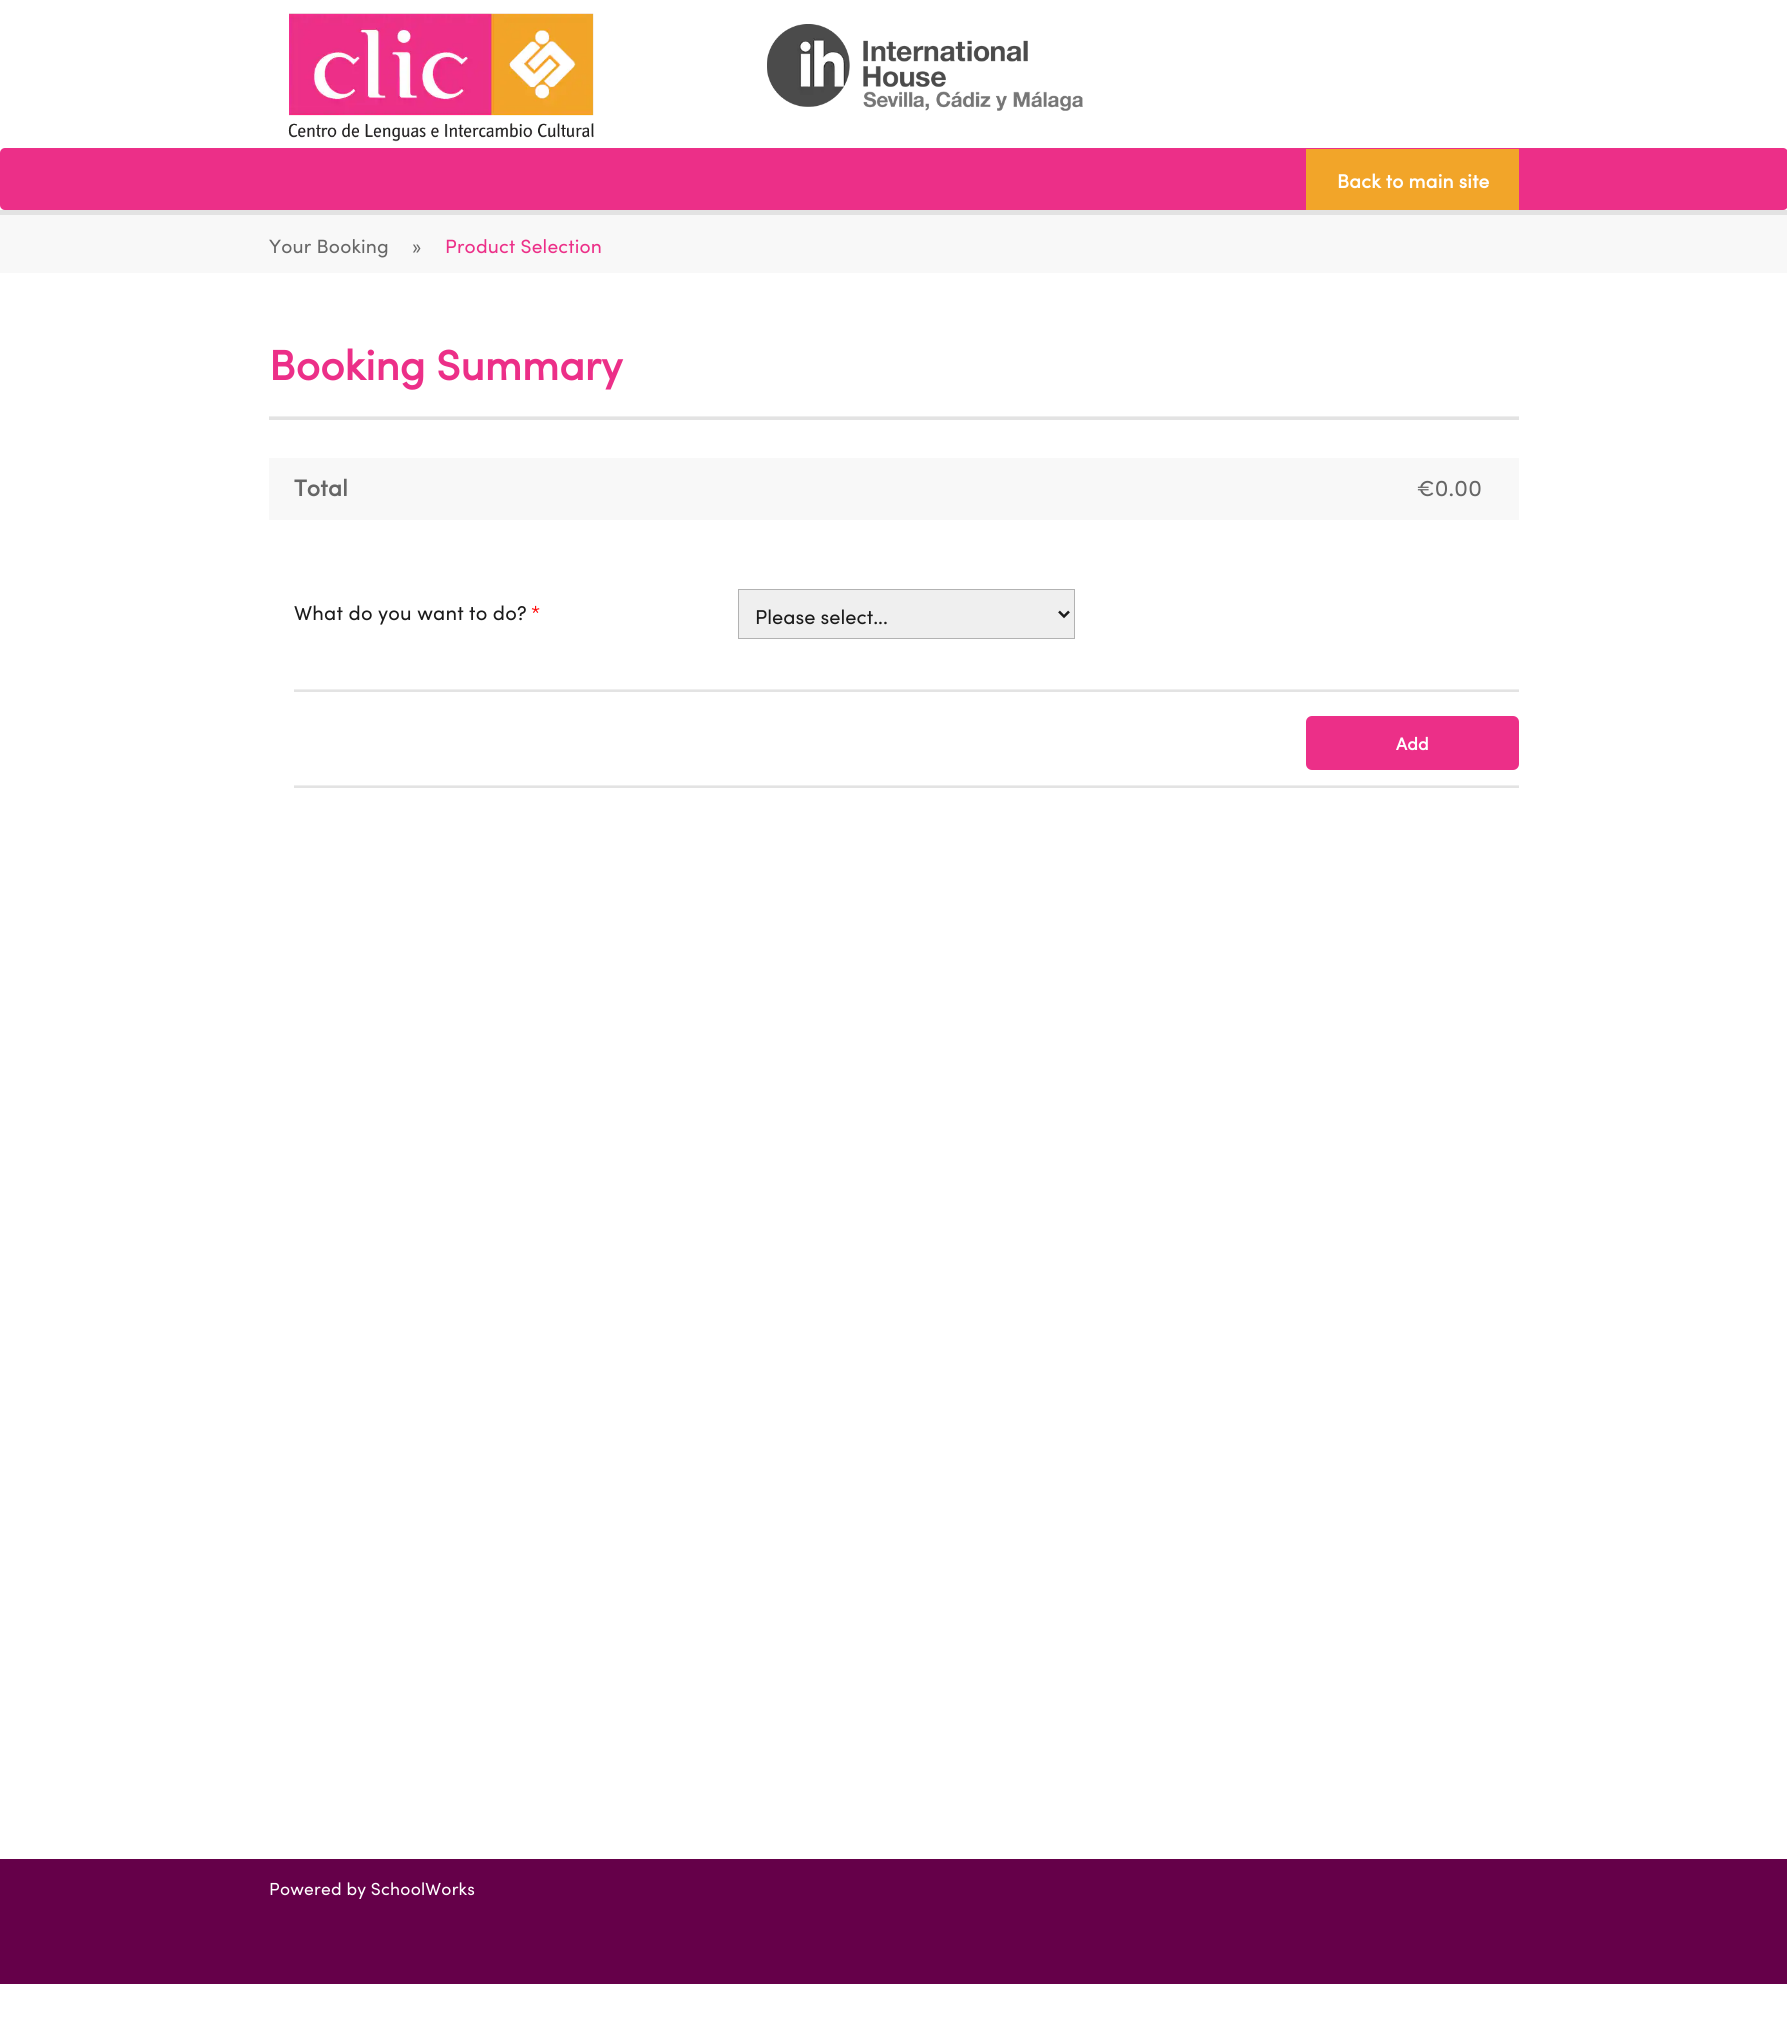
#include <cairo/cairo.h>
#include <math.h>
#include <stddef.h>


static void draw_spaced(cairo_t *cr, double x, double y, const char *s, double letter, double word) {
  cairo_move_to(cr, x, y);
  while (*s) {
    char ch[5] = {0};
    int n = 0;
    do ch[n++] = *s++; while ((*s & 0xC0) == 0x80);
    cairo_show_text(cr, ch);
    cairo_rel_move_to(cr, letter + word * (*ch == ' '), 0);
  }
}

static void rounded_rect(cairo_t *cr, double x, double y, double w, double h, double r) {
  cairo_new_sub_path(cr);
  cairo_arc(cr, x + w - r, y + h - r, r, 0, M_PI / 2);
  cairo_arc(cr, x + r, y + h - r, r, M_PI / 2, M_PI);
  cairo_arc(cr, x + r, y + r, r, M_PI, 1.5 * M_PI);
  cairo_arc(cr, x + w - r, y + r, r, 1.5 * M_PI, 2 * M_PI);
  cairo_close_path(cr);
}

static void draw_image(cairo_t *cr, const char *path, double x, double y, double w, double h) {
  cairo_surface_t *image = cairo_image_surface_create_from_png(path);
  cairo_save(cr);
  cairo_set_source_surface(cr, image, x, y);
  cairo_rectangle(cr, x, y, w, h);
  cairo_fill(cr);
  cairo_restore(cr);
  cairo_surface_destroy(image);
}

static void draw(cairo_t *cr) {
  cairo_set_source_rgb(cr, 1, 1, 1);
  cairo_paint(cr);
  draw_image(cr, "images/1.png", 288, 13, 795, 129);
  cairo_set_source_rgb(cr, 236 / 255.0, 47 / 255.0, 136 / 255.0);
  rounded_rect(cr, 0, 148, 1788, 62, 5);
  cairo_fill(cr);
  cairo_set_source_rgb(cr, 242 / 255.0, 165 / 255.0, 41 / 255.0);
  cairo_rectangle(cr, 1306, 149, 213, 61);
  cairo_fill(cr);
  cairo_set_source_rgb(cr, 248 / 255.0, 248 / 255.0, 248 / 255.0);
  cairo_rectangle(cr, 0, 215, 1787, 58);
  cairo_fill(cr);
  cairo_set_source_rgb(cr, 227 / 255.0, 227 / 255.0, 227 / 255.0);
  cairo_rectangle(cr, 0, 210, 1787, 5);
  cairo_fill(cr);
  cairo_rectangle(cr, 269, 417, 1250, 3);
  cairo_fill(cr);
  cairo_set_source_rgb(cr, 238 / 255.0, 238 / 255.0, 238 / 255.0);
  cairo_rectangle(cr, 269, 416, 1250, 1);
  cairo_fill(cr);
  cairo_set_source_rgb(cr, 248 / 255.0, 248 / 255.0, 248 / 255.0);
  cairo_rectangle(cr, 269, 458, 1250, 62);
  cairo_fill(cr);
  cairo_set_source_rgb(cr, 239 / 255.0, 239 / 255.0, 239 / 255.0);
  cairo_rectangle(cr, 738.5, 589.5, 336, 49);
  cairo_fill_preserve(cr);
  cairo_set_source_rgb(cr, 178 / 255.0, 178 / 255.0, 178 / 255.0);
  cairo_set_line_width(cr, 1);
  cairo_stroke(cr);
  cairo_new_path(cr);
  cairo_move_to(cr, 1059, 611.5);
  cairo_line_to(cr, 1064, 616.5);
  cairo_line_to(cr, 1069, 611.5);
  cairo_set_source_rgb(cr, 27 / 255.0, 27 / 255.0, 27 / 255.0);
  cairo_set_line_width(cr, 2.5);
  cairo_stroke(cr);
  cairo_set_source_rgb(cr, 227 / 255.0, 227 / 255.0, 227 / 255.0);
  cairo_rectangle(cr, 294, 690, 1225, 2);
  cairo_fill(cr);
  cairo_set_source_rgb(cr, 238 / 255.0, 238 / 255.0, 238 / 255.0);
  cairo_rectangle(cr, 294, 689, 1225, 1);
  cairo_fill(cr);
  cairo_set_source_rgb(cr, 236 / 255.0, 47 / 255.0, 136 / 255.0);
  rounded_rect(cr, 1306, 716, 213, 54, 6);
  cairo_fill(cr);
  cairo_set_source_rgb(cr, 227 / 255.0, 227 / 255.0, 227 / 255.0);
  cairo_rectangle(cr, 294, 786, 1225, 2);
  cairo_fill(cr);
  cairo_set_source_rgb(cr, 238 / 255.0, 238 / 255.0, 238 / 255.0);
  cairo_rectangle(cr, 294, 785, 1225, 1);
  cairo_fill(cr);
  cairo_set_source_rgb(cr, 101 / 255.0, 0, 73 / 255.0);
  cairo_rectangle(cr, 0, 1859, 1787, 125);
  cairo_fill(cr);
  cairo_select_font_face(cr, "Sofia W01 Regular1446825", CAIRO_FONT_SLANT_NORMAL, CAIRO_FONT_WEIGHT_BOLD);
  cairo_set_font_size(cr, 19.25);
  cairo_set_source_rgb(cr, 1, 1, 1);
  draw_spaced(cr, 1337, 188, "Back to main site", 0.2, 0);
  cairo_select_font_face(cr, "Sofia W01 Regular1446825", CAIRO_FONT_SLANT_NORMAL, CAIRO_FONT_WEIGHT_NORMAL);
  cairo_set_source_rgb(cr, 102 / 255.0, 102 / 255.0, 102 / 255.0);
  draw_spaced(cr, 269, 253, "Your Booking", 0.2, 0);
  draw_spaced(cr, 412, 253, "»", 0.2, 0);
  cairo_set_source_rgb(cr, 236 / 255.0, 47 / 255.0, 136 / 255.0);
  draw_spaced(cr, 445, 253, "Product Selection", 0.2, 0);
  cairo_select_font_face(cr, "Sofia W01 Regular1446825", CAIRO_FONT_SLANT_NORMAL, CAIRO_FONT_WEIGHT_BOLD);
  cairo_set_font_size(cr, 42);
  draw_spaced(cr, 269, 380, "Booking Summary", 0.2, 0);
  cairo_set_font_size(cr, 23);
  cairo_set_source_rgb(cr, 102 / 255.0, 102 / 255.0, 102 / 255.0);
  draw_spaced(cr, 294, 496, "Total", 0.2, 0);
  cairo_select_font_face(cr, "Sofia W01 Regular1446825", CAIRO_FONT_SLANT_NORMAL, CAIRO_FONT_WEIGHT_NORMAL);
  draw_spaced(cr, 1417, 496, "€0.00", 0.2, 0);
  cairo_set_font_size(cr, 20.1);
  cairo_set_source_rgb(cr, 27 / 255.0, 27 / 255.0, 27 / 255.0);
  draw_spaced(cr, 294, 620, "What do you want to do?", 0.2, 0);
  cairo_set_source_rgb(cr, 1, 0, 0);
  draw_spaced(cr, 531, 620, "*", 0.2, 0);
  cairo_set_source_rgb(cr, 27 / 255.0, 27 / 255.0, 27 / 255.0);
  cairo_move_to(cr, 755, 624);
  cairo_show_text(cr, "Please select...");
  cairo_select_font_face(cr, "Sofia W01 Regular1446825", CAIRO_FONT_SLANT_NORMAL, CAIRO_FONT_WEIGHT_BOLD);
  cairo_set_font_size(cr, 17.5);
  cairo_set_source_rgb(cr, 1, 1, 1);
  draw_spaced(cr, 1396, 750, "Add", 0.2, 0);
  cairo_select_font_face(cr, "Sofia W01 Regular1446825", CAIRO_FONT_SLANT_NORMAL, CAIRO_FONT_WEIGHT_NORMAL);
  draw_spaced(cr, 269, 1895, "Powered by SchoolWorks", 0.2, 0);
}

int main(void) {
  cairo_surface_t *surface = cairo_image_surface_create(CAIRO_FORMAT_RGB24, 1787, 2020);
  cairo_t *cr = cairo_create(surface);
  cairo_font_options_t *options = cairo_font_options_create();
  cairo_font_options_set_hint_metrics(options, CAIRO_HINT_METRICS_OFF);
  cairo_font_options_set_hint_style(options, CAIRO_HINT_STYLE_NONE);
  cairo_set_font_options(cr, options);
  cairo_set_miter_limit(cr, 4);
  draw(cr);
  cairo_surface_write_to_png(surface, "out.png");
  cairo_font_options_destroy(options);
  cairo_destroy(cr);
  cairo_surface_destroy(surface);
  return 0;
}
